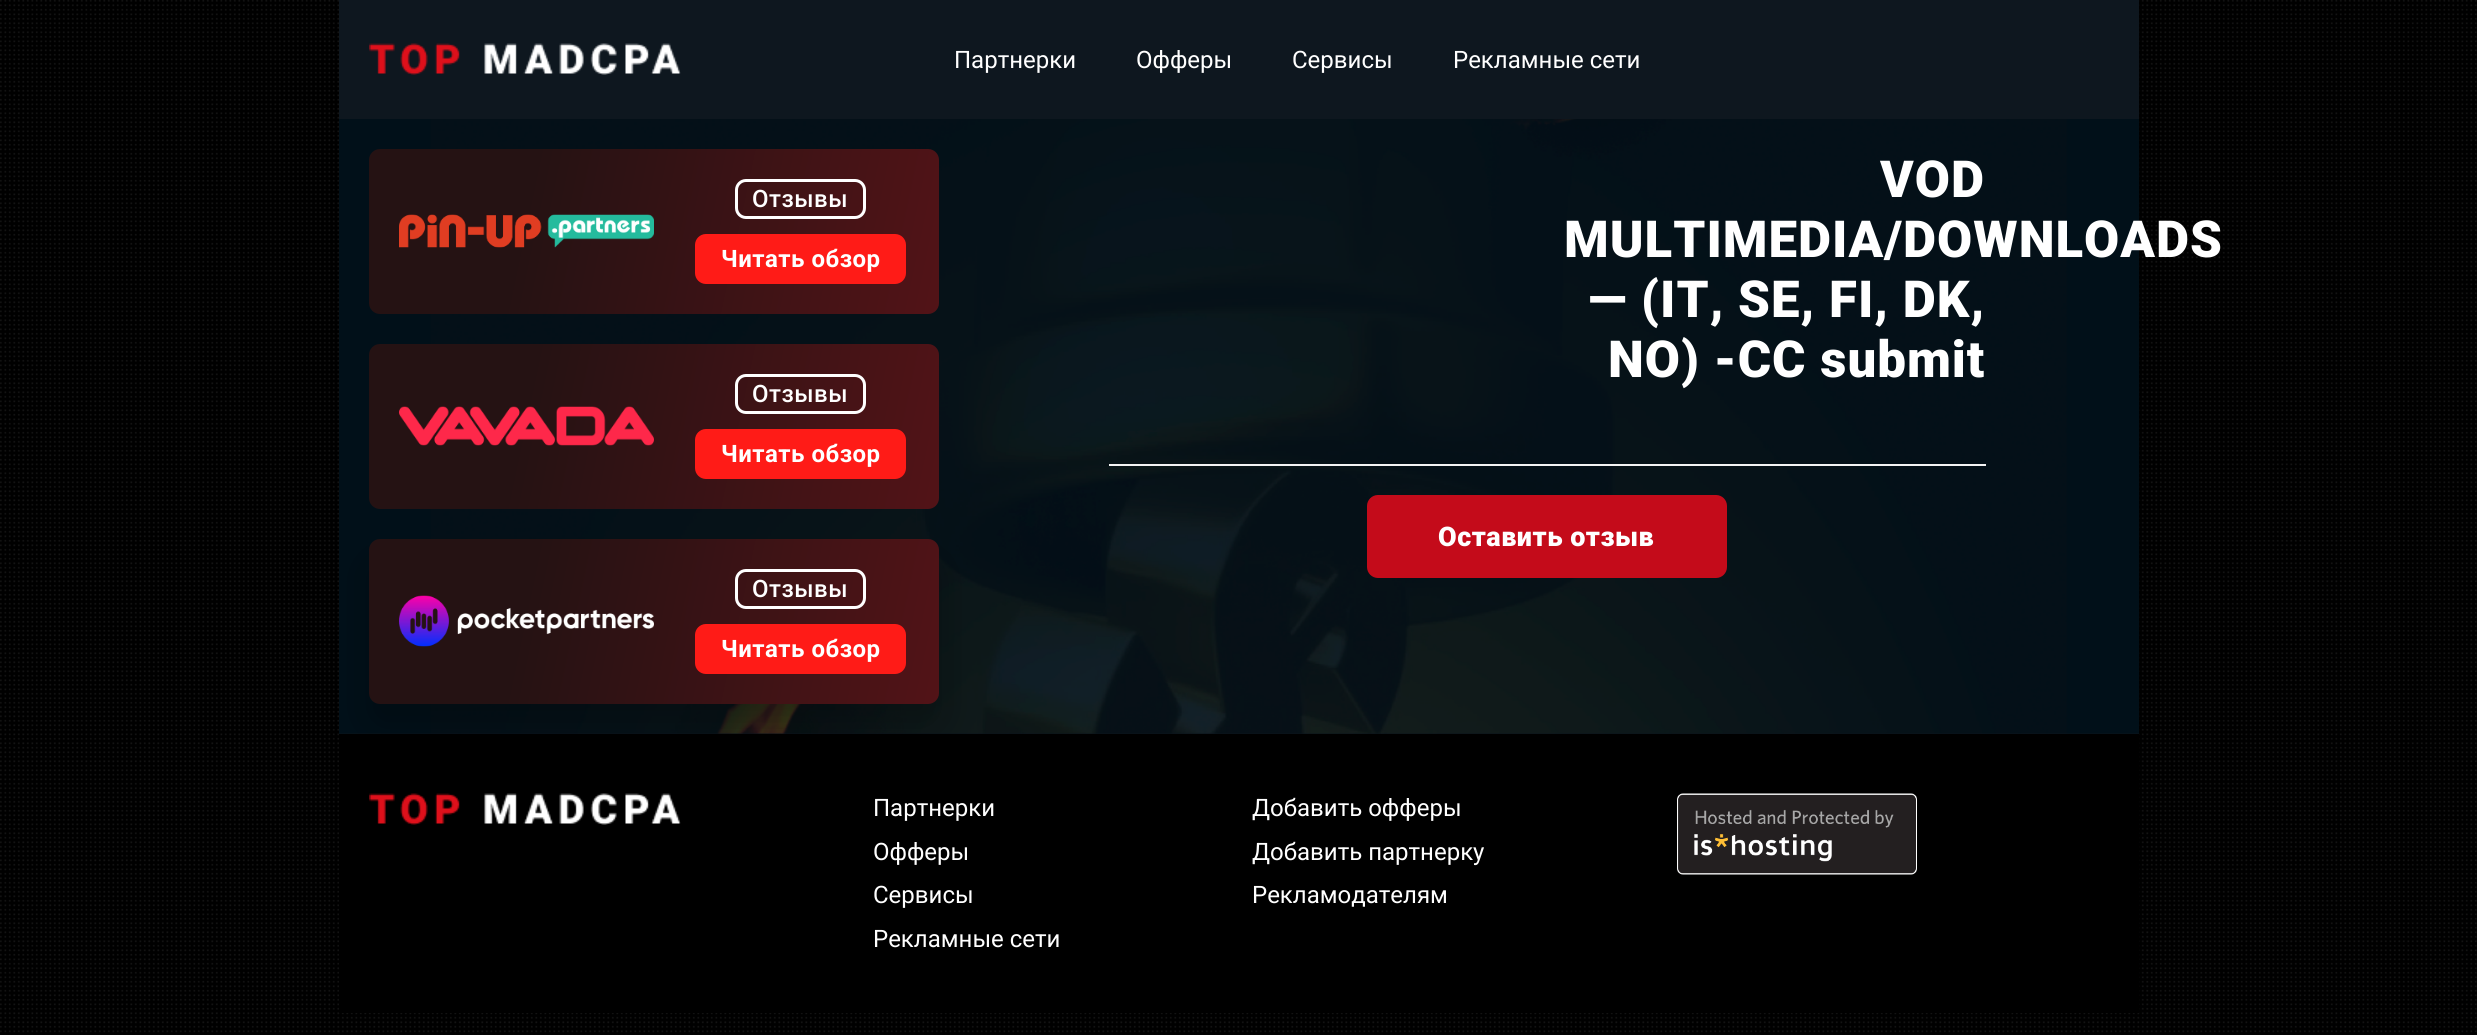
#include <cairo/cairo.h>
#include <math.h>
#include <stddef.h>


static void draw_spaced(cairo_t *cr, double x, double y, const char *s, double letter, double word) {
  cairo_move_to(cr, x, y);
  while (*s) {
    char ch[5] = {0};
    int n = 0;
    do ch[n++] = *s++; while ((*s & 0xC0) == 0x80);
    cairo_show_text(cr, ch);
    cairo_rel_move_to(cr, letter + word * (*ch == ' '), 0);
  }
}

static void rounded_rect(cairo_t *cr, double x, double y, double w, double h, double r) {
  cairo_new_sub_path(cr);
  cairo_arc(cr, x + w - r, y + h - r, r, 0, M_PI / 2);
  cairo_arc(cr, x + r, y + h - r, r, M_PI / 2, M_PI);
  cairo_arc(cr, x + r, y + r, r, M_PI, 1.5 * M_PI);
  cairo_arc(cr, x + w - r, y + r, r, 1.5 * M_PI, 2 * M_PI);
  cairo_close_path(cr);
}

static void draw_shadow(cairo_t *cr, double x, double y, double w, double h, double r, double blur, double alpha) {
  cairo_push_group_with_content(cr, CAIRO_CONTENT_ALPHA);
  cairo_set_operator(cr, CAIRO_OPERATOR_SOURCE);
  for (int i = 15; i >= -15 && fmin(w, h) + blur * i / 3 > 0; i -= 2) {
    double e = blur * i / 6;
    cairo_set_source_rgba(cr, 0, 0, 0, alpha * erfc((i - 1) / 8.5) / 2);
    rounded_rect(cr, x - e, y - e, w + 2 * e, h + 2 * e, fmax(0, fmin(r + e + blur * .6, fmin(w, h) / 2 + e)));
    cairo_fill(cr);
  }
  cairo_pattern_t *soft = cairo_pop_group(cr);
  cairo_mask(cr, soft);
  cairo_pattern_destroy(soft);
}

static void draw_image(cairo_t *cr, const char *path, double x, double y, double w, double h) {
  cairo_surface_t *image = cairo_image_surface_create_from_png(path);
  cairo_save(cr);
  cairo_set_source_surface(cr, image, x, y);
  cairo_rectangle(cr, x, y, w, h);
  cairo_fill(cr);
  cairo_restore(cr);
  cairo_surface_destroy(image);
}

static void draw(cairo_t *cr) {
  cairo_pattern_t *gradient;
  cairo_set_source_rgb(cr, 1, 1, 1);
  cairo_paint(cr);
  draw_image(cr, "images/1.png", 0, 0, 2477, 1035);
  cairo_set_source_rgb(cr, 14 / 255.0, 23 / 255.0, 31 / 255.0);
  cairo_rectangle(cr, 339, 0, 1800, 119);
  cairo_fill(cr);
  draw_image(cr, "images/2.png", 369, 43, 312, 32);
  cairo_set_source_rgba(cr, 14 / 255.0, 23 / 255.0, 31 / 255.0, 0.95);
  cairo_rectangle(cr, 339, 733, 1800, 1);
  cairo_fill(cr);
  draw_image(cr, "images/3.png", 339, 119, 1800, 615);
  gradient = cairo_pattern_create_linear(365, 170, 943, 292);
  cairo_pattern_add_color_stop_rgba(gradient, 0.28, 37 / 255.0, 18 / 255.0, 19 / 255.0, 1);
  cairo_pattern_add_color_stop_rgba(gradient, 1, 82 / 255.0, 19 / 255.0, 23 / 255.0, 1);
  cairo_set_source(cr, gradient);
  cairo_pattern_destroy(gradient);
  rounded_rect(cr, 369, 149, 570, 165, 11);
  cairo_fill(cr);
  draw_image(cr, "images/4.png", 399, 214, 255, 34);
  rounded_rect(cr, 736.5, 180.5, 128, 37, 9.5);
  cairo_set_source_rgb(cr, 1, 1, 1);
  cairo_set_line_width(cr, 3);
  cairo_stroke(cr);
  cairo_set_source_rgb(cr, 1, 27 / 255.0, 23 / 255.0);
  rounded_rect(cr, 696.5, 235.5, 208, 47, 9.5);
  cairo_fill_preserve(cr);
  cairo_stroke(cr);
  gradient = cairo_pattern_create_linear(365, 365, 943, 487);
  cairo_pattern_add_color_stop_rgba(gradient, 0.28, 37 / 255.0, 18 / 255.0, 19 / 255.0, 1);
  cairo_pattern_add_color_stop_rgba(gradient, 1, 82 / 255.0, 19 / 255.0, 23 / 255.0, 1);
  cairo_set_source(cr, gradient);
  cairo_pattern_destroy(gradient);
  rounded_rect(cr, 369, 344, 570, 165, 11);
  cairo_fill(cr);
  draw_image(cr, "images/5.png", 399, 406, 255, 40);
  rounded_rect(cr, 736.5, 375.5, 128, 37, 9.5);
  cairo_set_source_rgb(cr, 1, 1, 1);
  cairo_stroke(cr);
  cairo_set_source_rgb(cr, 1, 27 / 255.0, 23 / 255.0);
  rounded_rect(cr, 696.5, 430.5, 208, 47, 9.5);
  cairo_fill_preserve(cr);
  cairo_stroke(cr);
  cairo_set_source_rgb(cr, 0, 0, 0);
  draw_shadow(cr, 369, 561, 570, 165, 11, 19, 0.25);
  gradient = cairo_pattern_create_linear(365, 560, 943, 682);
  cairo_pattern_add_color_stop_rgba(gradient, 0.28, 37 / 255.0, 18 / 255.0, 19 / 255.0, 1);
  cairo_pattern_add_color_stop_rgba(gradient, 1, 82 / 255.0, 19 / 255.0, 23 / 255.0, 1);
  cairo_set_source(cr, gradient);
  cairo_pattern_destroy(gradient);
  rounded_rect(cr, 369, 539, 570, 165, 11);
  cairo_fill(cr);
  draw_image(cr, "images/6.png", 399, 595, 255, 52);
  rounded_rect(cr, 736.5, 570.5, 128, 37, 9.5);
  cairo_set_source_rgb(cr, 1, 1, 1);
  cairo_stroke(cr);
  cairo_set_source_rgb(cr, 1, 27 / 255.0, 23 / 255.0);
  rounded_rect(cr, 696.5, 625.5, 208, 47, 9.5);
  cairo_fill_preserve(cr);
  cairo_stroke(cr);
  cairo_set_source_rgb(cr, 244 / 255.0, 244 / 255.0, 244 / 255.0);
  cairo_rectangle(cr, 1109, 464, 877, 2);
  cairo_fill(cr);
  cairo_set_source_rgb(cr, 196 / 255.0, 11 / 255.0, 26 / 255.0);
  rounded_rect(cr, 1368.5, 496.5, 357, 80, 9.5);
  cairo_fill_preserve(cr);
  cairo_stroke(cr);
  cairo_set_source_rgb(cr, 0, 0, 0);
  cairo_rectangle(cr, 339, 734, 1800, 279);
  cairo_fill(cr);
  draw_image(cr, "images/7.png", 369, 793, 312, 32);
  draw_image(cr, "images/8.png", 1677, 793, 240, 82);
  cairo_select_font_face(cr, "Roboto", CAIRO_FONT_SLANT_NORMAL, CAIRO_FONT_WEIGHT_NORMAL);
  cairo_set_font_size(cr, 24);
  cairo_set_source_rgb(cr, 1, 1, 1);
  cairo_move_to(cr, 954, 68);
  cairo_show_text(cr, "Партнерки");
  cairo_move_to(cr, 1136, 68);
  cairo_show_text(cr, "Офферы");
  cairo_move_to(cr, 1292, 68);
  cairo_show_text(cr, "Сервисы");
  cairo_move_to(cr, 1453, 68);
  cairo_show_text(cr, "Рекламные сети");
  cairo_select_font_face(cr, "Roboto Medium", CAIRO_FONT_SLANT_NORMAL, CAIRO_FONT_WEIGHT_NORMAL);
  draw_spaced(cr, 752, 207, "Отзывы", 0.5, 0);
  cairo_select_font_face(cr, "Roboto", CAIRO_FONT_SLANT_NORMAL, CAIRO_FONT_WEIGHT_BOLD);
  draw_spaced(cr, 721, 267, "Читать обзор", 0.5, 0);
  cairo_select_font_face(cr, "Roboto Medium", CAIRO_FONT_SLANT_NORMAL, CAIRO_FONT_WEIGHT_NORMAL);
  draw_spaced(cr, 752, 402, "Отзывы", 0.5, 0);
  cairo_select_font_face(cr, "Roboto", CAIRO_FONT_SLANT_NORMAL, CAIRO_FONT_WEIGHT_BOLD);
  draw_spaced(cr, 721, 462, "Читать обзор", 0.5, 0);
  cairo_select_font_face(cr, "Roboto Medium", CAIRO_FONT_SLANT_NORMAL, CAIRO_FONT_WEIGHT_NORMAL);
  draw_spaced(cr, 752, 597, "Отзывы", 0.5, 0);
  cairo_select_font_face(cr, "Roboto", CAIRO_FONT_SLANT_NORMAL, CAIRO_FONT_WEIGHT_BOLD);
  draw_spaced(cr, 721, 657, "Читать обзор", 0.5, 0);
  cairo_select_font_face(cr, "Roboto Black", CAIRO_FONT_SLANT_NORMAL, CAIRO_FONT_WEIGHT_NORMAL);
  cairo_set_font_size(cr, 51);
  draw_spaced(cr, 1880, 197, "VOD", 1, 0);
  draw_spaced(cr, 1564, 257, "MULTIMEDIA/DOWNLOADS", 1, 0);
  draw_spaced(cr, 1588, 317, "— (IT, SE, FI, DK,", 1, 0);
  draw_spaced(cr, 1608, 377, "NO) -CC submit", 1, 0);
  cairo_set_font_size(cr, 27);
  draw_spaced(cr, 1438, 546, "Оставить отзыв", 0.5, 0);
  cairo_select_font_face(cr, "Roboto", CAIRO_FONT_SLANT_NORMAL, CAIRO_FONT_WEIGHT_NORMAL);
  cairo_set_font_size(cr, 24);
  cairo_move_to(cr, 873, 816);
  cairo_show_text(cr, "Партнерки");
  cairo_move_to(cr, 873, 860);
  cairo_show_text(cr, "Офферы");
  cairo_move_to(cr, 873, 903);
  cairo_show_text(cr, "Сервисы");
  cairo_move_to(cr, 873, 947);
  cairo_show_text(cr, "Рекламные сети");
  cairo_move_to(cr, 1252, 816);
  cairo_show_text(cr, "Добавить офферы");
  cairo_move_to(cr, 1252, 860);
  cairo_show_text(cr, "Добавить партнерку");
  cairo_move_to(cr, 1252, 903);
  cairo_show_text(cr, "Рекламодателям");
}

int main(void) {
  cairo_surface_t *surface = cairo_image_surface_create(CAIRO_FORMAT_RGB24, 2477, 1035);
  cairo_t *cr = cairo_create(surface);
  cairo_font_options_t *options = cairo_font_options_create();
  cairo_font_options_set_hint_metrics(options, CAIRO_HINT_METRICS_OFF);
  cairo_font_options_set_hint_style(options, CAIRO_HINT_STYLE_NONE);
  cairo_set_font_options(cr, options);
  cairo_set_miter_limit(cr, 4);
  draw(cr);
  cairo_surface_write_to_png(surface, "out.png");
  cairo_font_options_destroy(options);
  cairo_destroy(cr);
  cairo_surface_destroy(surface);
  return 0;
}
